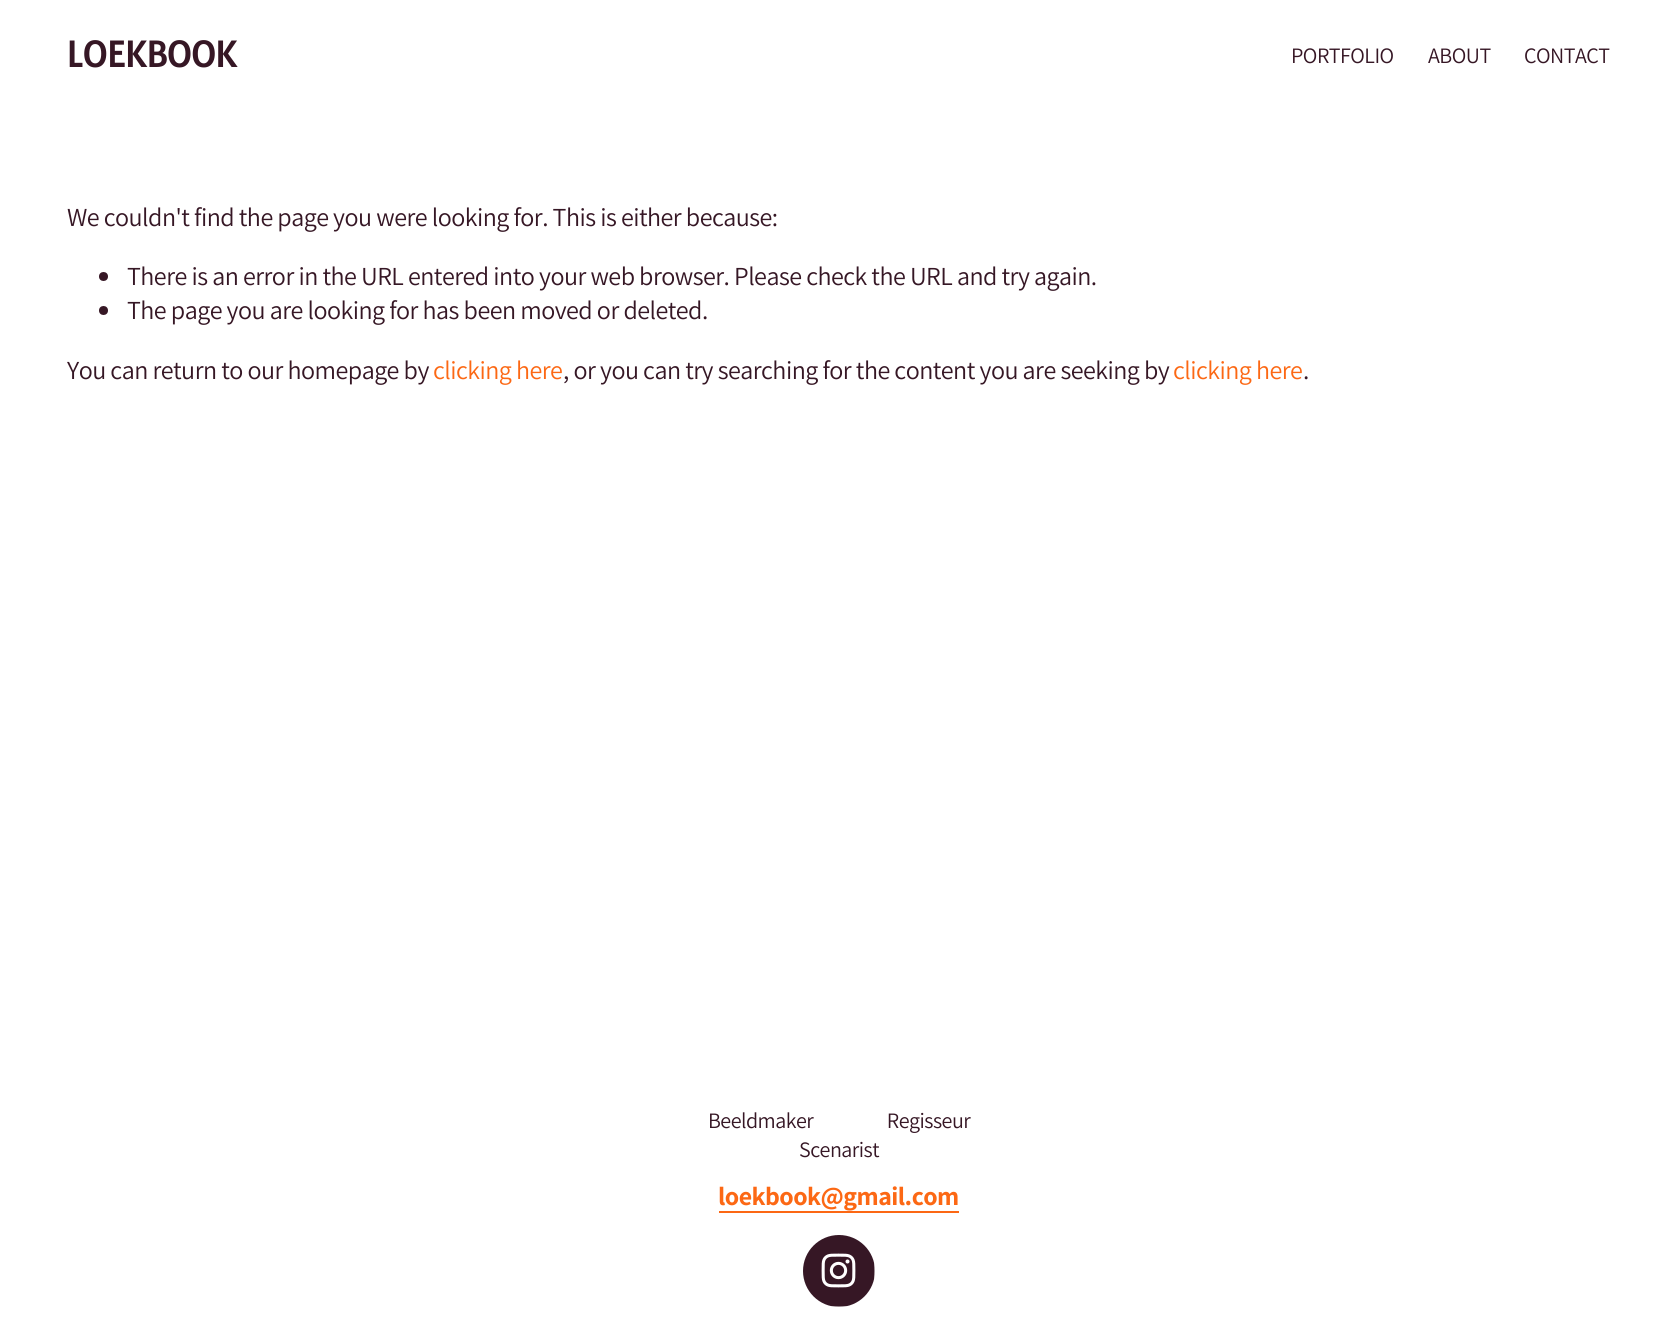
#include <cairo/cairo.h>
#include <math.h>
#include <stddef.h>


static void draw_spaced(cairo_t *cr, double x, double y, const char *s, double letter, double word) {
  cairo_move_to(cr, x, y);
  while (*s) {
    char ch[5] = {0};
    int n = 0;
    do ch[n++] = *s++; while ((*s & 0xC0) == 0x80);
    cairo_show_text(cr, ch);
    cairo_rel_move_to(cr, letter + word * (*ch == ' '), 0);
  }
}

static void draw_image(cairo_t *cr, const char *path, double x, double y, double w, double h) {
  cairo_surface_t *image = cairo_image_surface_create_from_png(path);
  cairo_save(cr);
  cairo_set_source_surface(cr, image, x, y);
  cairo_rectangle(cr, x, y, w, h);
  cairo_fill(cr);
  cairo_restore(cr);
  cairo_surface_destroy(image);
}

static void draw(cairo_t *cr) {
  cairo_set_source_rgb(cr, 1, 1, 1);
  cairo_paint(cr);
  cairo_set_source_rgb(cr, 54 / 255.0, 23 / 255.0, 37 / 255.0);
  cairo_arc(cr, 103.5, 276.5, 4.5, 0, 2 * M_PI);
  cairo_fill(cr);
  cairo_arc(cr, 103.5, 310.5, 4.5, 0, 2 * M_PI);
  cairo_fill(cr);
  cairo_set_source_rgb(cr, 252 / 255.0, 104 / 255.0, 20 / 255.0);
  cairo_rectangle(cr, 719, 1211, 240, 2);
  cairo_fill(cr);
  draw_image(cr, "images/1.png", 803, 1235, 72, 72);
  cairo_select_font_face(cr, "Alatsi", CAIRO_FONT_SLANT_NORMAL, CAIRO_FONT_WEIGHT_NORMAL);
  cairo_set_font_size(cr, 38);
  cairo_set_source_rgb(cr, 54 / 255.0, 23 / 255.0, 37 / 255.0);
  draw_spaced(cr, 67, 67, "LOEKBOOK", -0.75, 0);
  cairo_select_font_face(cr, "Assistant", CAIRO_FONT_SLANT_NORMAL, CAIRO_FONT_WEIGHT_NORMAL);
  cairo_set_font_size(cr, 22);
  draw_spaced(cr, 1291, 63, "PORTFOLIO", -0.5, 0);
  draw_spaced(cr, 1428, 63, "ABOUT", -0.5, 0);
  draw_spaced(cr, 1524, 63, "CONTACT", -0.5, 0);
  cairo_set_font_size(cr, 26);
  draw_spaced(cr, 67, 226, "We couldn't find the page you were looking for. This is either because:", -0.52, 0);
  draw_spaced(cr, 127, 285, "There is an error in the URL entered into your web browser. Please check the URL and try again.", -0.52, 0);
  draw_spaced(cr, 127, 319, "The page you are looking for has been moved or deleted.", -0.52, 0);
  draw_spaced(cr, 67, 379, "You can return to our homepage by", -0.52, 0);
  cairo_set_source_rgb(cr, 252 / 255.0, 104 / 255.0, 20 / 255.0);
  draw_spaced(cr, 433, 379, "clicking here", -0.52, 0);
  cairo_set_source_rgb(cr, 54 / 255.0, 23 / 255.0, 37 / 255.0);
  draw_spaced(cr, 563, 379, ", or you can try searching for the content you are seeking by", -0.52, 0);
  cairo_set_source_rgb(cr, 252 / 255.0, 104 / 255.0, 20 / 255.0);
  draw_spaced(cr, 1173, 379, "clicking here", -0.52, 0);
  cairo_set_source_rgb(cr, 54 / 255.0, 23 / 255.0, 37 / 255.0);
  draw_spaced(cr, 1303, 379, ".", -0.52, 0);
  cairo_set_font_size(cr, 22);
  draw_spaced(cr, 708, 1128, "Beeldmaker                   Regisseur", -0.52, 0);
  draw_spaced(cr, 799, 1157, "Scenarist", -0.52, 0);
  cairo_select_font_face(cr, "Assistant", CAIRO_FONT_SLANT_NORMAL, CAIRO_FONT_WEIGHT_BOLD);
  cairo_set_font_size(cr, 26);
  cairo_set_source_rgb(cr, 252 / 255.0, 104 / 255.0, 20 / 255.0);
  draw_spaced(cr, 718, 1205, "loekbook@gmail.com", -0.52, 0);
}

int main(void) {
  cairo_surface_t *surface = cairo_image_surface_create(CAIRO_FORMAT_RGB24, 1677, 1328);
  cairo_t *cr = cairo_create(surface);
  cairo_font_options_t *options = cairo_font_options_create();
  cairo_font_options_set_hint_metrics(options, CAIRO_HINT_METRICS_OFF);
  cairo_font_options_set_hint_style(options, CAIRO_HINT_STYLE_NONE);
  cairo_set_font_options(cr, options);
  cairo_set_miter_limit(cr, 4);
  draw(cr);
  cairo_surface_write_to_png(surface, "out.png");
  cairo_font_options_destroy(options);
  cairo_destroy(cr);
  cairo_surface_destroy(surface);
  return 0;
}
